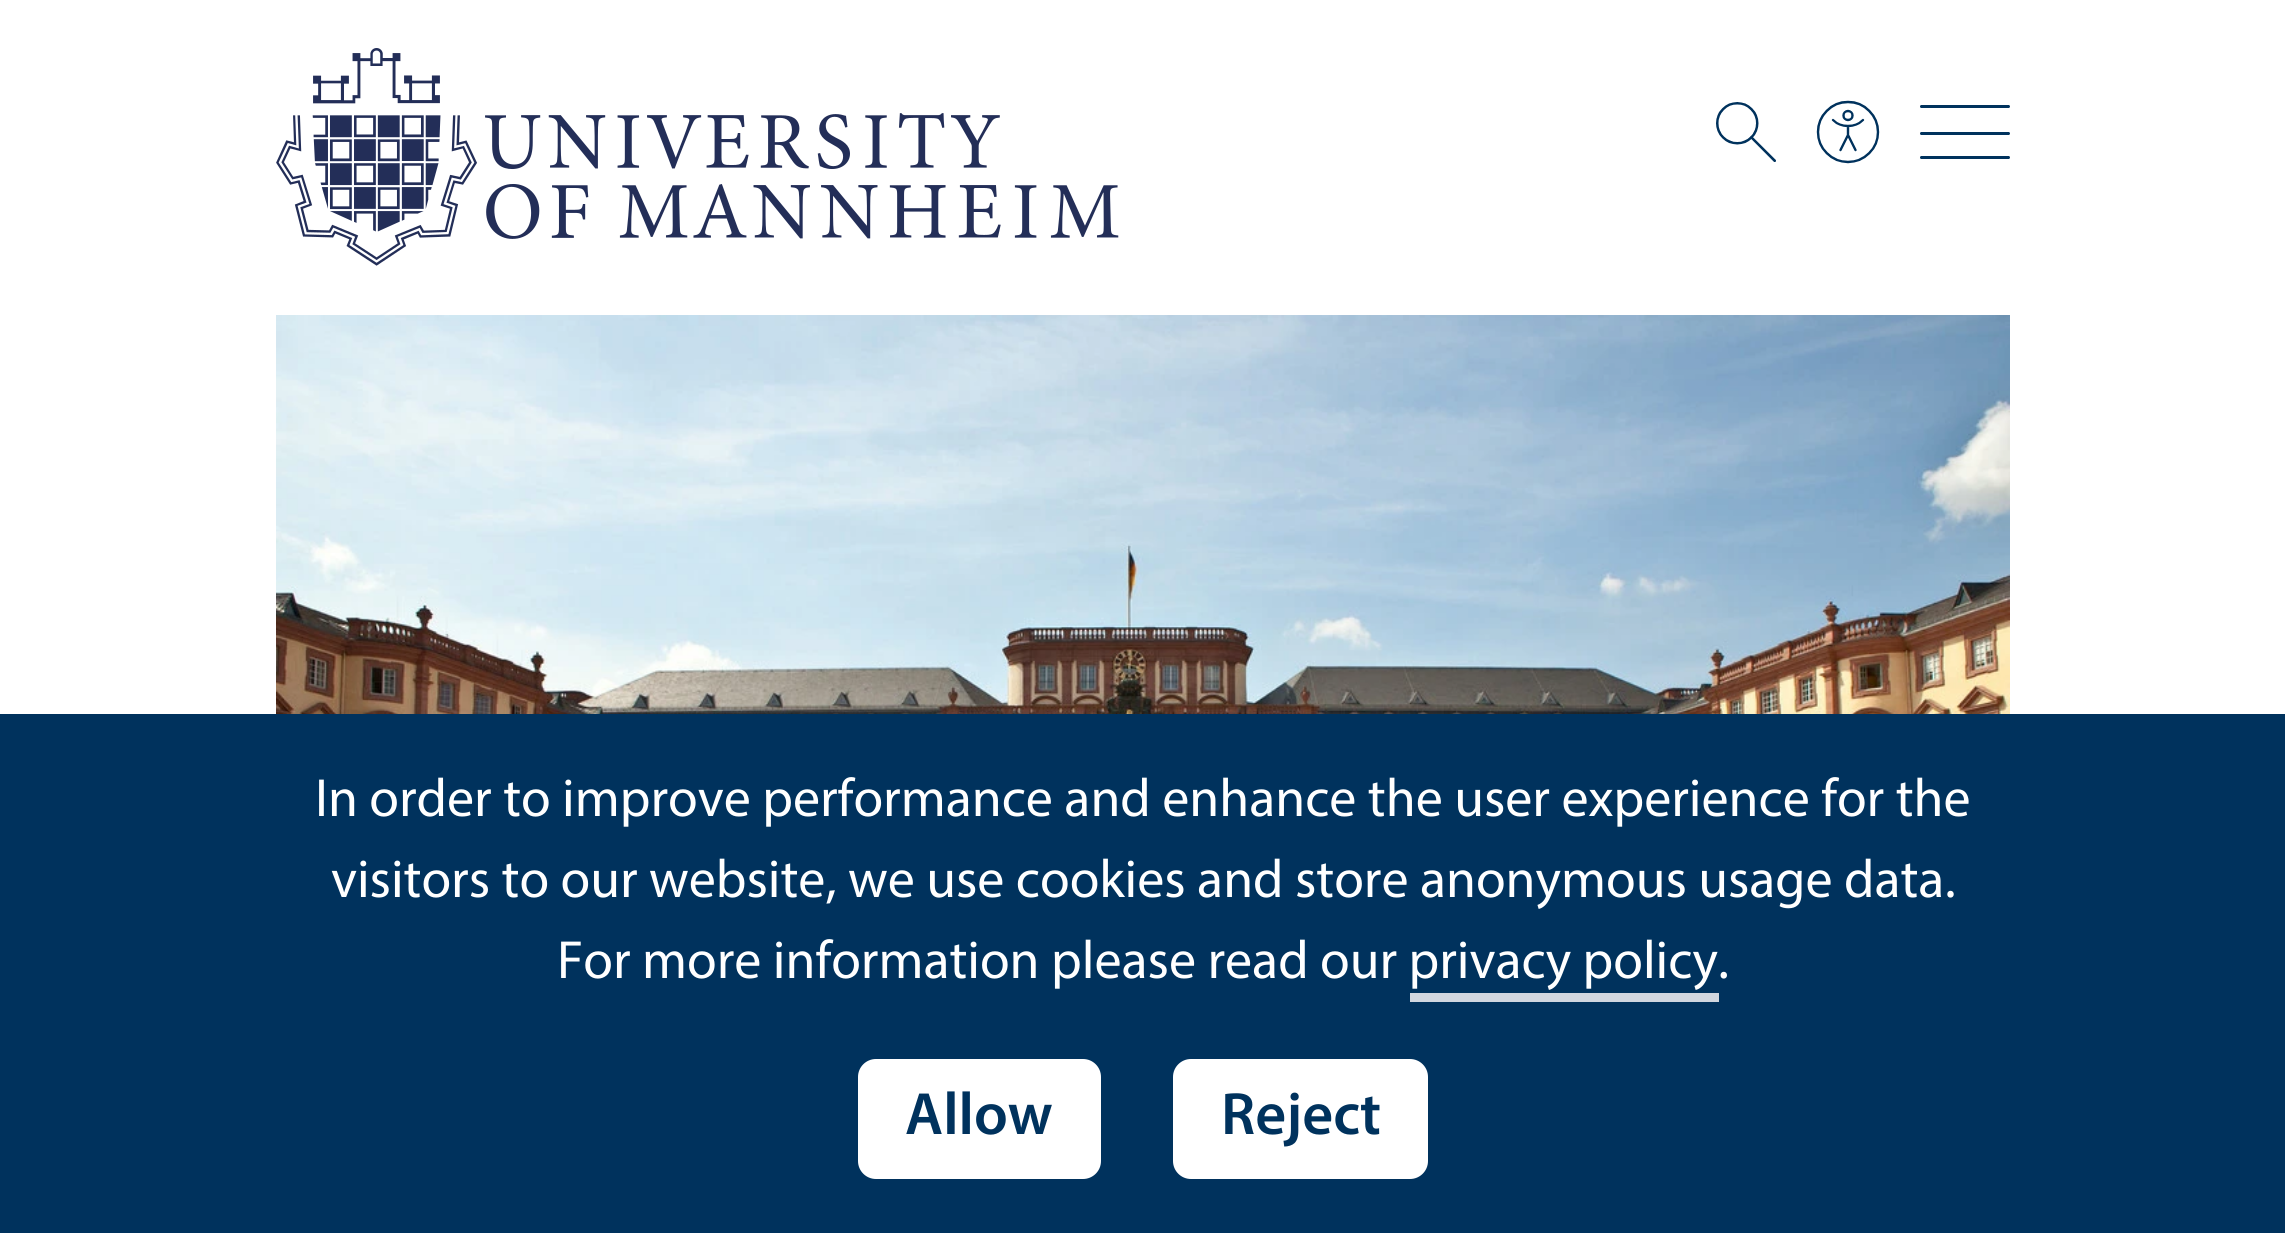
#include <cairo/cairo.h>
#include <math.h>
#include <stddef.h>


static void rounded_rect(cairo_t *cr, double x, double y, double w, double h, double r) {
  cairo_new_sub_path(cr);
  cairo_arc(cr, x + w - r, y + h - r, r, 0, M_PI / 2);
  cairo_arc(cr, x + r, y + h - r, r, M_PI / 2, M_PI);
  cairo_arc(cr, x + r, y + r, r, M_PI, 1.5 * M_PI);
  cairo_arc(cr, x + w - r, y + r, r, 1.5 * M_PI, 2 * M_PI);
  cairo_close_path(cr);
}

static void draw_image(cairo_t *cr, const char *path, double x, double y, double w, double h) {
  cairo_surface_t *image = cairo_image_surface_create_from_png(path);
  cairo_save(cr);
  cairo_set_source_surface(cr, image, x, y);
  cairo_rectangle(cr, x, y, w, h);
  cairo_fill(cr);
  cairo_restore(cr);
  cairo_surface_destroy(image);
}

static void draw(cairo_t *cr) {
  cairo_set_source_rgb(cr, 1, 1, 1);
  cairo_paint(cr);
  draw_image(cr, "images/1.png", 276, 48, 843, 218);
  draw_image(cr, "images/2.png", 1716, 102, 60, 60);
  draw_image(cr, "images/3.png", 1816, 100, 64, 64);
  draw_image(cr, "images/4.png", 1920, 105, 90, 54);
  draw_image(cr, "images/5.png", 276, 315, 1734, 399);
  cairo_set_source_rgb(cr, 0, 50 / 255.0, 93 / 255.0);
  cairo_rectangle(cr, 0, 714, 2285, 519);
  cairo_fill(cr);
  cairo_set_source_rgb(cr, 209 / 255.0, 215 / 255.0, 223 / 255.0);
  cairo_rectangle(cr, 1410, 993, 309, 9);
  cairo_fill(cr);
  cairo_set_source_rgb(cr, 1, 1, 1);
  rounded_rect(cr, 855, 1056, 249, 126, 21);
  cairo_fill_preserve(cr);
  cairo_set_source_rgb(cr, 0, 50 / 255.0, 93 / 255.0);
  cairo_set_line_width(cr, 6);
  cairo_stroke(cr);
  cairo_set_source_rgb(cr, 1, 1, 1);
  rounded_rect(cr, 1170, 1056, 261, 126, 21);
  cairo_fill_preserve(cr);
  cairo_set_source_rgb(cr, 0, 50 / 255.0, 93 / 255.0);
  cairo_stroke(cr);
  cairo_select_font_face(cr, "myriad", CAIRO_FONT_SLANT_NORMAL, CAIRO_FONT_WEIGHT_NORMAL);
  cairo_set_font_size(cr, 54);
  cairo_set_source_rgb(cr, 1, 1, 1);
  cairo_move_to(cr, 315, 816);
  cairo_show_text(cr, "In order to improve performance and enhance the user experience for the");
  cairo_move_to(cr, 331, 897);
  cairo_show_text(cr, "visitors to our website, we use cookies and store anonymous usage data.");
  cairo_move_to(cr, 557, 978);
  cairo_show_text(cr, "For more information please read our privacy policy.");
  cairo_select_font_face(cr, "Myriad SemiBold", CAIRO_FONT_SLANT_NORMAL, CAIRO_FONT_WEIGHT_NORMAL);
  cairo_set_font_size(cr, 60);
  cairo_set_source_rgb(cr, 0, 50 / 255.0, 93 / 255.0);
  cairo_move_to(cr, 905, 1134);
  cairo_show_text(cr, "Allow");
  cairo_move_to(cr, 1221, 1134);
  cairo_show_text(cr, "Reject");
}

int main(void) {
  cairo_surface_t *surface = cairo_image_surface_create(CAIRO_FORMAT_RGB24, 2285, 1233);
  cairo_t *cr = cairo_create(surface);
  cairo_font_options_t *options = cairo_font_options_create();
  cairo_font_options_set_hint_metrics(options, CAIRO_HINT_METRICS_OFF);
  cairo_font_options_set_hint_style(options, CAIRO_HINT_STYLE_NONE);
  cairo_set_font_options(cr, options);
  cairo_set_miter_limit(cr, 4);
  draw(cr);
  cairo_surface_write_to_png(surface, "out.png");
  cairo_font_options_destroy(options);
  cairo_destroy(cr);
  cairo_surface_destroy(surface);
  return 0;
}
